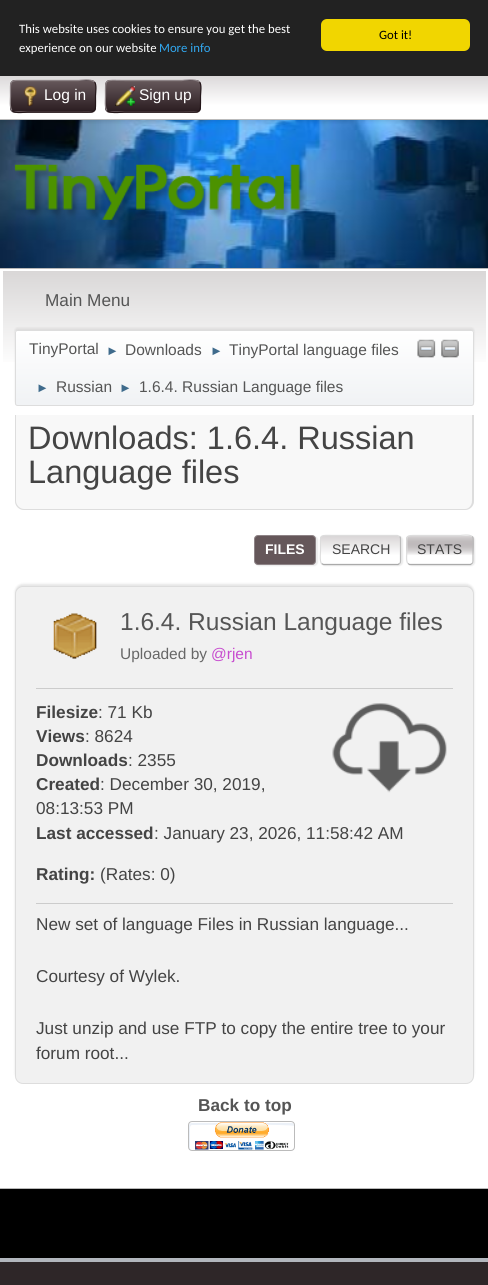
#include <cairo/cairo.h>
#include <math.h>
#include <stddef.h>


static void rounded_rect(cairo_t *cr, double x, double y, double w, double h, double r) {
  cairo_new_sub_path(cr);
  cairo_arc(cr, x + w - r, y + h - r, r, 0, M_PI / 2);
  cairo_arc(cr, x + r, y + h - r, r, M_PI / 2, M_PI);
  cairo_arc(cr, x + r, y + r, r, M_PI, 1.5 * M_PI);
  cairo_arc(cr, x + w - r, y + r, r, 1.5 * M_PI, 2 * M_PI);
  cairo_close_path(cr);
}

static void draw_shadow(cairo_t *cr, double x, double y, double w, double h, double r, double blur, double alpha) {
  cairo_push_group_with_content(cr, CAIRO_CONTENT_ALPHA);
  cairo_set_operator(cr, CAIRO_OPERATOR_SOURCE);
  for (int i = 15; i >= -15 && fmin(w, h) + blur * i / 3 > 0; i -= 2) {
    double e = blur * i / 6;
    cairo_set_source_rgba(cr, 0, 0, 0, alpha * erfc((i - 1) / 8.5) / 2);
    rounded_rect(cr, x - e, y - e, w + 2 * e, h + 2 * e, fmax(0, fmin(r + e + blur * .6, fmin(w, h) / 2 + e)));
    cairo_fill(cr);
  }
  cairo_pattern_t *soft = cairo_pop_group(cr);
  cairo_mask(cr, soft);
  cairo_pattern_destroy(soft);
}

static void draw_image(cairo_t *cr, const char *path, double x, double y, double w, double h) {
  cairo_surface_t *image = cairo_image_surface_create_from_png(path);
  cairo_save(cr);
  cairo_set_source_surface(cr, image, x, y);
  cairo_rectangle(cr, x, y, w, h);
  cairo_fill(cr);
  cairo_restore(cr);
  cairo_surface_destroy(image);
}

static void draw(cairo_t *cr) {
  cairo_pattern_t *gradient;
  cairo_set_source_rgb(cr, 0, 0, 0);
  cairo_paint(cr);
  draw_image(cr, "images/1.png", 0, 120, 488, 148);
  draw_shadow(cr, 0, 75, 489, 46, 0, 2.5, 0.16);
  cairo_set_source_rgb(cr, 34 / 255.0, 34 / 255.0, 34 / 255.0);
  cairo_rectangle(cr, 0, 0, 488, 76);
  cairo_fill(cr);
  cairo_set_source_rgb(cr, 241 / 255.0, 214 / 255.0, 0);
  rounded_rect(cr, 321, 19, 149, 32, 6);
  cairo_fill(cr);
  gradient = cairo_pattern_create_linear(244, 74, 244, 119);
  cairo_pattern_add_color_stop_rgba(gradient, 0, 217 / 255.0, 214 / 255.0, 215 / 255.0, 1);
  cairo_pattern_add_color_stop_rgba(gradient, 0.7, 1, 1, 1, 1);
  cairo_set_source(cr, gradient);
  cairo_pattern_destroy(gradient);
  cairo_rectangle(cr, 0, 76, 488, 43);
  cairo_fill(cr);
  cairo_set_source_rgb(cr, 187 / 255.0, 187 / 255.0, 187 / 255.0);
  cairo_rectangle(cr, 0, 119, 488, 1);
  cairo_fill(cr);
  cairo_save(cr);
  rounded_rect(cr, 10, 80, 86, 33, 5);
  cairo_clip(cr);
  gradient = cairo_pattern_create_linear(53, 51, 53, 81);
  cairo_pattern_add_color_stop_rgba(gradient, 0, 101 / 255.0, 87 / 255.0, 90 / 255.0, 1);
  cairo_pattern_add_color_stop_rgba(gradient, 1, 44 / 255.0, 30 / 255.0, 34 / 255.0, 1);
  cairo_set_source(cr, gradient);
  cairo_pattern_destroy(gradient);
  cairo_rectangle(cr, 10, 80, 86, 1);
  cairo_fill(cr);
  gradient = cairo_pattern_create_linear(53, 81, 53, 111);
  cairo_pattern_add_color_stop_rgba(gradient, 0, 101 / 255.0, 87 / 255.0, 90 / 255.0, 1);
  cairo_pattern_add_color_stop_rgba(gradient, 1, 44 / 255.0, 30 / 255.0, 34 / 255.0, 1);
  cairo_set_source(cr, gradient);
  cairo_pattern_destroy(gradient);
  cairo_rectangle(cr, 10, 81, 86, 30);
  cairo_fill(cr);
  gradient = cairo_pattern_create_linear(53, 111, 53, 141);
  cairo_pattern_add_color_stop_rgba(gradient, 0, 101 / 255.0, 87 / 255.0, 90 / 255.0, 1);
  cairo_pattern_add_color_stop_rgba(gradient, 1, 44 / 255.0, 30 / 255.0, 34 / 255.0, 1);
  cairo_set_source(cr, gradient);
  cairo_pattern_destroy(gradient);
  cairo_rectangle(cr, 10, 111, 86, 2);
  cairo_fill(cr);
  cairo_restore(cr);
  cairo_new_path(cr);
  cairo_move_to(cr, 94.5, 82);
  cairo_curve_to(cr, 97, 84.5, 95.5, 93, 95.5, 96);
  cairo_curve_to(cr, 95.5, 114, 97.5, 112, 78.5, 112);
  cairo_line_to(cr, 27.5, 112);
  cairo_curve_to(cr, 26, 112, 15, 114, 12, 110.5);
  cairo_set_source_rgb(cr, 35 / 255.0, 22 / 255.0, 25 / 255.0);
  cairo_set_line_width(cr, 1.2);
  cairo_stroke(cr);
  cairo_new_path(cr);
  cairo_move_to(cr, 12, 110.5);
  cairo_curve_to(cr, 9.5, 108, 10.5, 99.5, 10.5, 96);
  cairo_curve_to(cr, 10.5, 78.5, 8.5, 80.5, 27.5, 80.5);
  cairo_line_to(cr, 78.5, 80.5);
  cairo_curve_to(cr, 80, 80.5, 91, 78.5, 94.5, 82);
  cairo_set_source_rgb(cr, 142 / 255.0, 132 / 255.0, 135 / 255.0);
  cairo_stroke(cr);
  draw_image(cr, "images/2.png", 23, 86, 14, 20);
  cairo_save(cr);
  rounded_rect(cr, 105, 80, 96, 33, 5);
  cairo_clip(cr);
  gradient = cairo_pattern_create_linear(153, 51, 153, 81);
  cairo_pattern_add_color_stop_rgba(gradient, 0, 101 / 255.0, 87 / 255.0, 90 / 255.0, 1);
  cairo_pattern_add_color_stop_rgba(gradient, 1, 44 / 255.0, 30 / 255.0, 34 / 255.0, 1);
  cairo_set_source(cr, gradient);
  cairo_pattern_destroy(gradient);
  cairo_rectangle(cr, 105, 80, 96, 1);
  cairo_fill(cr);
  gradient = cairo_pattern_create_linear(153, 81, 153, 111);
  cairo_pattern_add_color_stop_rgba(gradient, 0, 101 / 255.0, 87 / 255.0, 90 / 255.0, 1);
  cairo_pattern_add_color_stop_rgba(gradient, 1, 44 / 255.0, 30 / 255.0, 34 / 255.0, 1);
  cairo_set_source(cr, gradient);
  cairo_pattern_destroy(gradient);
  cairo_rectangle(cr, 105, 81, 96, 30);
  cairo_fill(cr);
  gradient = cairo_pattern_create_linear(153, 111, 153, 141);
  cairo_pattern_add_color_stop_rgba(gradient, 0, 101 / 255.0, 87 / 255.0, 90 / 255.0, 1);
  cairo_pattern_add_color_stop_rgba(gradient, 1, 44 / 255.0, 30 / 255.0, 34 / 255.0, 1);
  cairo_set_source(cr, gradient);
  cairo_pattern_destroy(gradient);
  cairo_rectangle(cr, 105, 111, 96, 2);
  cairo_fill(cr);
  cairo_restore(cr);
  cairo_new_path(cr);
  cairo_move_to(cr, 199.5, 82);
  cairo_curve_to(cr, 202, 84.5, 200.5, 93, 200.5, 96);
  cairo_curve_to(cr, 200.5, 115, 202, 112, 182, 112);
  cairo_line_to(cr, 124.5, 112);
  cairo_curve_to(cr, 124, 112, 110.5, 114, 107, 110.5);
  cairo_set_source_rgb(cr, 35 / 255.0, 22 / 255.0, 25 / 255.0);
  cairo_stroke(cr);
  cairo_new_path(cr);
  cairo_move_to(cr, 107, 110.5);
  cairo_curve_to(cr, 104.5, 108, 105.5, 99.5, 105.5, 96);
  cairo_curve_to(cr, 105.5, 77.5, 104, 80.5, 124.5, 80.5);
  cairo_line_to(cr, 182, 80.5);
  cairo_curve_to(cr, 182.5, 80.5, 196, 78.5, 199.5, 82);
  cairo_set_source_rgb(cr, 142 / 255.0, 132 / 255.0, 135 / 255.0);
  cairo_stroke(cr);
  draw_image(cr, "images/3.png", 115, 86, 20, 20);
  draw_image(cr, "images/4.png", 14, 164, 293, 64);
  cairo_set_source_rgb(cr, 1, 1, 1);
  cairo_rectangle(cr, 0, 269, 488, 919);
  cairo_fill(cr);
  cairo_set_source_rgb(cr, 184 / 255.0, 184 / 255.0, 184 / 255.0);
  cairo_rectangle(cr, 0, 268, 488, 1);
  cairo_fill(cr);
  cairo_rectangle(cr, 0, 1188, 488, 1);
  cairo_fill(cr);
  gradient = cairo_pattern_create_linear(244, 271, 244, 409);
  cairo_pattern_add_color_stop_rgba(gradient, 0, 217 / 255.0, 215 / 255.0, 215 / 255.0, 1);
  cairo_pattern_add_color_stop_rgba(gradient, 0.7, 1, 1, 1, 1);
  cairo_set_source(cr, gradient);
  cairo_pattern_destroy(gradient);
  cairo_rectangle(cr, 3, 271, 483, 91);
  cairo_fill(cr);
  cairo_set_source_rgb(cr, 0, 0, 0);
  draw_shadow(cr, 15, 328, 459, 76, 2.5, 1, 0.08);
  cairo_save(cr);
  rounded_rect(cr, 15, 330, 459, 76, 2.5);
  cairo_clip(cr);
  gradient = cairo_pattern_create_linear(244, 331, 244, 405);
  cairo_pattern_add_color_stop_rgba(gradient, 0, 1, 1, 1, 1);
  cairo_pattern_add_color_stop_rgba(gradient, 0.95, 241 / 255.0, 243 / 255.0, 245 / 255.0, 1);
  cairo_set_source(cr, gradient);
  cairo_pattern_destroy(gradient);
  cairo_rectangle(cr, 15, 331, 459, 74);
  cairo_fill(cr);
  cairo_restore(cr);
  rounded_rect(cr, 15.5, 330.5, 458, 75, 2);
  cairo_set_source_rgb(cr, 221 / 255.0, 221 / 255.0, 221 / 255.0);
  cairo_set_line_width(cr, 1);
  cairo_stroke(cr);
  draw_image(cr, "images/5.png", 417, 339, 19, 19);
  draw_image(cr, "images/6.png", 441, 339, 18, 19);
  cairo_set_source_rgb(cr, 248 / 255.0, 248 / 255.0, 248 / 255.0);
  cairo_new_path(cr);
  cairo_move_to(cr, 15, 415);
  cairo_line_to(cr, 474, 415);
  cairo_line_to(cr, 474, 501);
  cairo_curve_to(cr, 474, 506, 470, 510, 465, 510);
  cairo_line_to(cr, 24, 510);
  cairo_curve_to(cr, 19, 510, 15, 506, 15, 501);
  cairo_close_path(cr);
  cairo_fill(cr);
  cairo_save(cr);
  cairo_rectangle(cr, 15, 415, 459, 674);
  cairo_clip(cr);
  cairo_set_source_rgb(cr, 221 / 255.0, 221 / 255.0, 221 / 255.0);
  cairo_set_fill_rule(cr, CAIRO_FILL_RULE_EVEN_ODD);
  cairo_new_path(cr);
  cairo_move_to(cr, 15, 406);
  cairo_line_to(cr, 474, 406);
  cairo_line_to(cr, 474, 501);
  cairo_curve_to(cr, 474, 506, 470, 510, 465, 510);
  cairo_line_to(cr, 24, 510);
  cairo_curve_to(cr, 19, 510, 15, 506, 15, 501);
  cairo_close_path(cr);
  cairo_move_to(cr, 16, 406);
  cairo_line_to(cr, 472, 406);
  cairo_line_to(cr, 472, 501);
  cairo_curve_to(cr, 472, 505, 469, 509, 465, 509);
  cairo_line_to(cr, 24, 509);
  cairo_curve_to(cr, 20, 509, 16, 505, 16, 501);
  cairo_close_path(cr);
  cairo_fill(cr);
  cairo_restore(cr);
  cairo_set_source_rgb(cr, 221 / 255.0, 221 / 255.0, 221 / 255.0);
  draw_shadow(cr, 255, 536, 63, 30, 4, 0.5, 0.57);
  cairo_set_source_rgb(cr, 101 / 255.0, 87 / 255.0, 90 / 255.0);
  rounded_rect(cr, 254.5, 535.5, 61, 29, 3.5);
  cairo_fill_preserve(cr);
  cairo_set_source_rgb(cr, 142 / 255.0, 132 / 255.0, 135 / 255.0);
  cairo_stroke(cr);
  cairo_set_source_rgb(cr, 221 / 255.0, 221 / 255.0, 221 / 255.0);
  draw_shadow(cr, 321, 536, 82, 30, 4, 0.5, 0.57);
  cairo_save(cr);
  rounded_rect(cr, 320, 535, 81, 30, 4);
  cairo_clip(cr);
  gradient = cairo_pattern_create_linear(361, 536, 361, 564);
  cairo_pattern_add_color_stop_rgba(gradient, 0, 217 / 255.0, 214 / 255.0, 215 / 255.0, 1);
  cairo_pattern_add_color_stop_rgba(gradient, 0.7, 1, 1, 1, 1);
  cairo_set_source(cr, gradient);
  cairo_pattern_destroy(gradient);
  cairo_rectangle(cr, 320, 536, 81, 28);
  cairo_fill(cr);
  cairo_restore(cr);
  cairo_new_path(cr);
  cairo_move_to(cr, 399.5, 536.5);
  cairo_curve_to(cr, 400.5, 537, 400.5, 538, 400.5, 539);
  cairo_line_to(cr, 400.5, 561);
  cairo_curve_to(cr, 400.5, 562, 400.5, 563, 399.5, 563.5);
  cairo_set_source_rgb(cr, 187 / 255.0, 187 / 255.0, 187 / 255.0);
  cairo_set_line_width(cr, 1.2);
  cairo_stroke(cr);
  cairo_new_path(cr);
  cairo_move_to(cr, 399.5, 563.5);
  cairo_line_to(cr, 398, 564.5);
  cairo_line_to(cr, 323.5, 564.5);
  cairo_line_to(cr, 321.5, 563.5);
  cairo_set_source_rgb(cr, 170 / 255.0, 170 / 255.0, 170 / 255.0);
  cairo_stroke(cr);
  cairo_new_path(cr);
  cairo_move_to(cr, 321.5, 563.5);
  cairo_curve_to(cr, 319.5, 561.5, 320.5, 552.5, 320.5, 550);
  cairo_curve_to(cr, 320.5, 533, 318, 535.5, 336, 535.5);
  cairo_line_to(cr, 397.5, 535.5);
  cairo_line_to(cr, 399.5, 536.5);
  cairo_set_source_rgb(cr, 221 / 255.0, 221 / 255.0, 221 / 255.0);
  cairo_stroke(cr);
  cairo_save(cr);
  cairo_set_fill_rule(cr, CAIRO_FILL_RULE_EVEN_ODD);
  cairo_new_path(cr);
  cairo_move_to(cr, 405, 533);
  cairo_line_to(cr, 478, 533);
  cairo_line_to(cr, 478, 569);
  cairo_line_to(cr, 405, 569);
  cairo_close_path(cr);
  cairo_move_to(cr, 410, 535);
  cairo_line_to(cr, 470, 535);
  cairo_curve_to(cr, 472, 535, 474, 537, 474, 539);
  cairo_line_to(cr, 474, 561);
  cairo_curve_to(cr, 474, 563, 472, 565, 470, 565);
  cairo_line_to(cr, 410, 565);
  cairo_curve_to(cr, 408, 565, 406, 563, 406, 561);
  cairo_line_to(cr, 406, 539);
  cairo_curve_to(cr, 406, 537, 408, 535, 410, 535);
  cairo_close_path(cr);
  cairo_clip(cr);
  cairo_set_source_rgb(cr, 221 / 255.0, 221 / 255.0, 221 / 255.0);
  draw_shadow(cr, 408, 536, 67, 30, 4, 0.5, 0.57);
  cairo_restore(cr);
  cairo_set_source_rgb(cr, 1, 1, 1);
  rounded_rect(cr, 406, 535, 68, 30, 4);
  cairo_fill(cr);
  cairo_save(cr);
  rounded_rect(cr, 406, 535, 68, 30, 4);
  cairo_clip(cr);
  gradient = cairo_pattern_create_linear(440, 536, 440, 564);
  cairo_pattern_add_color_stop_rgba(gradient, 0, 44 / 255.0, 30 / 255.0, 34 / 255.0, 0.18);
  cairo_pattern_add_color_stop_rgba(gradient, 0.7, 1, 1, 1, 1);
  cairo_set_source(cr, gradient);
  cairo_pattern_destroy(gradient);
  cairo_rectangle(cr, 406, 536, 68, 28);
  cairo_fill(cr);
  cairo_restore(cr);
  cairo_new_path(cr);
  cairo_move_to(cr, 472, 536.5);
  cairo_curve_to(cr, 473, 537, 473, 538, 473, 539);
  cairo_line_to(cr, 473, 561);
  cairo_curve_to(cr, 473, 562, 473, 563, 472, 563.5);
  cairo_set_source_rgb(cr, 187 / 255.0, 187 / 255.0, 187 / 255.0);
  cairo_stroke(cr);
  cairo_new_path(cr);
  cairo_move_to(cr, 472, 563.5);
  cairo_line_to(cr, 470.5, 564.5);
  cairo_line_to(cr, 409.5, 564.5);
  cairo_line_to(cr, 408, 563.5);
  cairo_set_source_rgb(cr, 170 / 255.0, 170 / 255.0, 170 / 255.0);
  cairo_stroke(cr);
  cairo_new_path(cr);
  cairo_move_to(cr, 408, 563.5);
  cairo_curve_to(cr, 405.5, 561.5, 407, 552.5, 407, 550);
  cairo_curve_to(cr, 407, 534, 404, 535.5, 420, 535.5);
  cairo_line_to(cr, 460, 535.5);
  cairo_curve_to(cr, 460.5, 535.5, 470, 534, 472, 536.5);
  cairo_set_source_rgb(cr, 221 / 255.0, 221 / 255.0, 221 / 255.0);
  cairo_stroke(cr);
  cairo_set_source_rgb(cr, 0, 0, 0);
  draw_shadow(cr, 15, 584, 459, 497, 8, 1, 0.1);
  cairo_set_source_rgb(cr, 241 / 255.0, 241 / 255.0, 241 / 255.0);
  rounded_rect(cr, 15.5, 586.5, 458, 497, 7.5);
  cairo_fill_preserve(cr);
  cairo_set_source_rgb(cr, 221 / 255.0, 221 / 255.0, 221 / 255.0);
  cairo_set_line_width(cr, 1);
  cairo_stroke(cr);
  draw_image(cr, "images/7.png", 53, 613, 44, 46);
  cairo_set_source_rgb(cr, 204 / 255.0, 204 / 255.0, 204 / 255.0);
  cairo_rectangle(cr, 36, 688, 417, 1);
  cairo_fill(cr);
  draw_image(cr, "images/8.png", 332, 703, 115, 90);
  cairo_rectangle(cr, 36, 903, 417, 1);
  cairo_fill(cr);
  cairo_set_source_rgb(cr, 236 / 255.0, 241 / 255.0, 248 / 255.0);
  cairo_new_path(cr);
  cairo_move_to(cr, 192, 1125);
  cairo_curve_to(cr, 202, 1125, 292, 1124, 294, 1126);
  cairo_curve_to(cr, 294, 1124, 293, 1123, 292, 1123);
  cairo_line_to(cr, 192, 1123);
  cairo_curve_to(cr, 190, 1123, 189, 1124, 189, 1126);
  cairo_line_to(cr, 189, 1148);
  cairo_curve_to(cr, 189, 1148, 189, 1149, 190, 1150);
  cairo_line_to(cr, 190, 1128);
  cairo_curve_to(cr, 190, 1126, 191, 1125, 192, 1125);
  cairo_close_path(cr);
  cairo_fill(cr);
  rounded_rect(cr, 188.5, 1121.5, 106, 29, 3.5);
  cairo_set_source_rgb(cr, 187 / 255.0, 187 / 255.0, 187 / 255.0);
  cairo_stroke(cr);
  draw_image(cr, "images/9.png", 195, 1122, 94, 28);
  cairo_set_source_rgb(cr, 46 / 255.0, 38 / 255.0, 40 / 255.0);
  cairo_rectangle(cr, 0, 1262, 488, 23);
  cairo_fill(cr);
  cairo_set_source_rgb(cr, 178 / 255.0, 182 / 255.0, 189 / 255.0);
  cairo_rectangle(cr, 0, 1258, 488, 4);
  cairo_fill(cr);
  cairo_select_font_face(cr, "Carlito", CAIRO_FONT_SLANT_NORMAL, CAIRO_FONT_WEIGHT_NORMAL);
  cairo_set_font_size(cr, 12.75);
  cairo_set_source_rgb(cr, 1, 1, 1);
  cairo_move_to(cr, 19, 33);
  cairo_show_text(cr, "This website uses cookies to ensure you get the best");
  cairo_move_to(cr, 19, 52);
  cairo_show_text(cr, "experience on our website");
  cairo_set_source_rgb(cr, 49 / 255.0, 168 / 255.0, 240 / 255.0);
  cairo_move_to(cr, 159, 52);
  cairo_show_text(cr, "More info");
  cairo_set_source_rgb(cr, 0, 0, 0);
  cairo_move_to(cr, 379, 39);
  cairo_show_text(cr, "Got it!");
  cairo_select_font_face(cr, "Liberation Sans", CAIRO_FONT_SLANT_NORMAL, CAIRO_FONT_WEIGHT_NORMAL);
  cairo_set_font_size(cr, 15.5);
  cairo_set_source_rgb(cr, 1, 1, 1);
  cairo_move_to(cr, 44, 100);
  cairo_show_text(cr, "Log in");
  cairo_move_to(cr, 139, 100);
  cairo_show_text(cr, "Sign up");
  cairo_set_font_size(cr, 17.2);
  cairo_set_source_rgb(cr, 85 / 255.0, 85 / 255.0, 85 / 255.0);
  cairo_move_to(cr, 45, 306);
  cairo_show_text(cr, "Main Menu");
  cairo_set_font_size(cr, 15.5);
  cairo_move_to(cr, 29, 354);
  cairo_show_text(cr, "TinyPortal");
  cairo_set_font_size(cr, 13);
  cairo_set_source_rgb(cr, 63 / 255.0, 107 / 255.0, 140 / 255.0);
  cairo_move_to(cr, 106, 355);
  cairo_show_text(cr, "►");
  cairo_set_font_size(cr, 15.5);
  cairo_set_source_rgb(cr, 85 / 255.0, 85 / 255.0, 85 / 255.0);
  cairo_move_to(cr, 125, 355);
  cairo_show_text(cr, "Downloads");
  cairo_set_font_size(cr, 13);
  cairo_set_source_rgb(cr, 63 / 255.0, 107 / 255.0, 140 / 255.0);
  cairo_move_to(cr, 210, 355);
  cairo_show_text(cr, "►");
  cairo_set_font_size(cr, 15.5);
  cairo_set_source_rgb(cr, 85 / 255.0, 85 / 255.0, 85 / 255.0);
  cairo_move_to(cr, 229, 355);
  cairo_show_text(cr, "TinyPortal language files");
  cairo_set_font_size(cr, 13);
  cairo_set_source_rgb(cr, 63 / 255.0, 107 / 255.0, 140 / 255.0);
  cairo_move_to(cr, 36, 392);
  cairo_show_text(cr, "►");
  cairo_set_font_size(cr, 15.5);
  cairo_set_source_rgb(cr, 85 / 255.0, 85 / 255.0, 85 / 255.0);
  cairo_move_to(cr, 56, 392);
  cairo_show_text(cr, "Russian");
  cairo_set_font_size(cr, 13);
  cairo_set_source_rgb(cr, 63 / 255.0, 107 / 255.0, 140 / 255.0);
  cairo_move_to(cr, 119, 392);
  cairo_show_text(cr, "►");
  cairo_set_font_size(cr, 15.5);
  cairo_set_source_rgb(cr, 85 / 255.0, 85 / 255.0, 85 / 255.0);
  cairo_move_to(cr, 139, 392);
  cairo_show_text(cr, "1.6.4. Russian Language files");
  cairo_set_font_size(cr, 32.5);
  cairo_set_source_rgb(cr, 68 / 255.0, 68 / 255.0, 68 / 255.0);
  cairo_move_to(cr, 28, 449);
  cairo_show_text(cr, "Downloads: 1.6.4. Russian");
  cairo_move_to(cr, 28, 483);
  cairo_show_text(cr, "Language files");
  cairo_select_font_face(cr, "Liberation Sans", CAIRO_FONT_SLANT_NORMAL, CAIRO_FONT_WEIGHT_BOLD);
  cairo_set_font_size(cr, 14);
  cairo_set_source_rgb(cr, 1, 1, 1);
  cairo_move_to(cr, 265, 554);
  cairo_show_text(cr, "FILES");
  cairo_select_font_face(cr, "Liberation Sans", CAIRO_FONT_SLANT_NORMAL, CAIRO_FONT_WEIGHT_NORMAL);
  cairo_set_source_rgb(cr, 68 / 255.0, 68 / 255.0, 68 / 255.0);
  cairo_move_to(cr, 332, 554);
  cairo_show_text(cr, "SEARCH");
  cairo_move_to(cr, 417, 554);
  cairo_show_text(cr, "STATS");
  cairo_set_font_size(cr, 24.5);
  cairo_set_source_rgb(cr, 85 / 255.0, 85 / 255.0, 85 / 255.0);
  cairo_move_to(cr, 120, 630);
  cairo_show_text(cr, "1.6.4. Russian Language files");
  cairo_set_font_size(cr, 15.5);
  cairo_set_source_rgb(cr, 103 / 255.0, 103 / 255.0, 103 / 255.0);
  cairo_move_to(cr, 120, 659);
  cairo_show_text(cr, "Uploaded by");
  cairo_set_source_rgb(cr, 199 / 255.0, 76 / 255.0, 207 / 255.0);
  cairo_move_to(cr, 211, 659);
  cairo_show_text(cr, "@rjen");
  cairo_select_font_face(cr, "Liberation Sans", CAIRO_FONT_SLANT_NORMAL, CAIRO_FONT_WEIGHT_BOLD);
  cairo_set_font_size(cr, 17.2);
  cairo_set_source_rgb(cr, 68 / 255.0, 68 / 255.0, 68 / 255.0);
  cairo_move_to(cr, 36, 718);
  cairo_show_text(cr, "Filesize");
  cairo_select_font_face(cr, "Liberation Sans", CAIRO_FONT_SLANT_NORMAL, CAIRO_FONT_WEIGHT_NORMAL);
  cairo_move_to(cr, 98, 718);
  cairo_show_text(cr, ": 71 Kb");
  cairo_select_font_face(cr, "Liberation Sans", CAIRO_FONT_SLANT_NORMAL, CAIRO_FONT_WEIGHT_BOLD);
  cairo_move_to(cr, 36, 742);
  cairo_show_text(cr, "Views");
  cairo_select_font_face(cr, "Liberation Sans", CAIRO_FONT_SLANT_NORMAL, CAIRO_FONT_WEIGHT_NORMAL);
  cairo_move_to(cr, 85, 742);
  cairo_show_text(cr, ": 8624");
  cairo_select_font_face(cr, "Liberation Sans", CAIRO_FONT_SLANT_NORMAL, CAIRO_FONT_WEIGHT_BOLD);
  cairo_move_to(cr, 36, 766);
  cairo_show_text(cr, "Downloads");
  cairo_select_font_face(cr, "Liberation Sans", CAIRO_FONT_SLANT_NORMAL, CAIRO_FONT_WEIGHT_NORMAL);
  cairo_move_to(cr, 128, 766);
  cairo_show_text(cr, ": 2355");
  cairo_select_font_face(cr, "Liberation Sans", CAIRO_FONT_SLANT_NORMAL, CAIRO_FONT_WEIGHT_BOLD);
  cairo_move_to(cr, 36, 790);
  cairo_show_text(cr, "Created");
  cairo_select_font_face(cr, "Liberation Sans", CAIRO_FONT_SLANT_NORMAL, CAIRO_FONT_WEIGHT_NORMAL);
  cairo_move_to(cr, 100, 790);
  cairo_show_text(cr, ": December 30, 2019,");
  cairo_move_to(cr, 36, 814);
  cairo_show_text(cr, "08:13:53 PM");
  cairo_select_font_face(cr, "Liberation Sans", CAIRO_FONT_SLANT_NORMAL, CAIRO_FONT_WEIGHT_BOLD);
  cairo_move_to(cr, 36, 839);
  cairo_show_text(cr, "Last accessed");
  cairo_select_font_face(cr, "Liberation Sans", CAIRO_FONT_SLANT_NORMAL, CAIRO_FONT_WEIGHT_NORMAL);
  cairo_move_to(cr, 154, 839);
  cairo_show_text(cr, ": January 23, 2026, 11:58:42 AM");
  cairo_select_font_face(cr, "Liberation Sans", CAIRO_FONT_SLANT_NORMAL, CAIRO_FONT_WEIGHT_BOLD);
  cairo_move_to(cr, 36, 880);
  cairo_show_text(cr, "Rating:");
  cairo_select_font_face(cr, "Liberation Sans", CAIRO_FONT_SLANT_NORMAL, CAIRO_FONT_WEIGHT_NORMAL);
  cairo_move_to(cr, 100, 880);
  cairo_show_text(cr, "(Rates: 0)");
  cairo_move_to(cr, 36, 930);
  cairo_show_text(cr, "New set of language Files in Russian language...");
  cairo_move_to(cr, 36, 982);
  cairo_show_text(cr, "Courtesy of Wylek.");
  cairo_move_to(cr, 36, 1034);
  cairo_show_text(cr, "Just unzip and use FTP to copy the entire tree to your");
  cairo_move_to(cr, 36, 1059);
  cairo_show_text(cr, "forum root...");
  cairo_select_font_face(cr, "Liberation Sans", CAIRO_FONT_SLANT_NORMAL, CAIRO_FONT_WEIGHT_BOLD);
  cairo_set_source_rgb(cr, 85 / 255.0, 85 / 255.0, 85 / 255.0);
  cairo_move_to(cr, 198, 1111);
  cairo_show_text(cr, "Back to top");
}

int main(void) {
  cairo_surface_t *surface = cairo_image_surface_create(CAIRO_FORMAT_RGB24, 488, 1285);
  cairo_t *cr = cairo_create(surface);
  cairo_font_options_t *options = cairo_font_options_create();
  cairo_font_options_set_hint_metrics(options, CAIRO_HINT_METRICS_OFF);
  cairo_font_options_set_hint_style(options, CAIRO_HINT_STYLE_NONE);
  cairo_set_font_options(cr, options);
  cairo_set_miter_limit(cr, 4);
  draw(cr);
  cairo_surface_write_to_png(surface, "out.png");
  cairo_font_options_destroy(options);
  cairo_destroy(cr);
  cairo_surface_destroy(surface);
  return 0;
}
